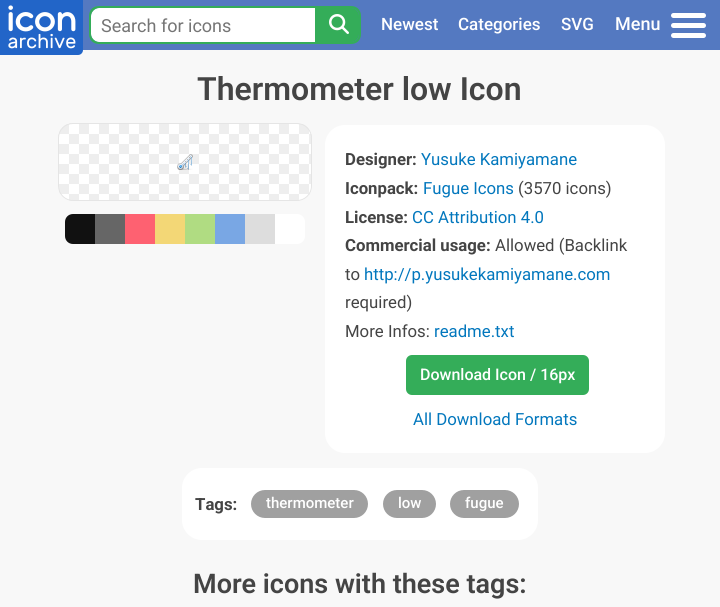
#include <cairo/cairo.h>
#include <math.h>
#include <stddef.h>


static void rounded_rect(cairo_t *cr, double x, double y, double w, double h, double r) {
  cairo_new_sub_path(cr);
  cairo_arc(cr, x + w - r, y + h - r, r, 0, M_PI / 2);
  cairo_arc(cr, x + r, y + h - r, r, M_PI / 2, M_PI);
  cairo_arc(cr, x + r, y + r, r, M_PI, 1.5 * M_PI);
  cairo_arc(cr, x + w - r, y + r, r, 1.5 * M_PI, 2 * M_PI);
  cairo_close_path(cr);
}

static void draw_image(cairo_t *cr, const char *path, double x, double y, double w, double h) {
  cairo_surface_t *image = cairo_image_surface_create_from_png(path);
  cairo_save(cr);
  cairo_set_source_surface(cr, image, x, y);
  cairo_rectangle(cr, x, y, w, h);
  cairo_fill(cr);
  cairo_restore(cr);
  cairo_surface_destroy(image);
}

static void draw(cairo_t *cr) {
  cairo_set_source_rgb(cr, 248 / 255.0, 248 / 255.0, 248 / 255.0);
  cairo_paint(cr);
  cairo_set_source_rgb(cr, 84 / 255.0, 121 / 255.0, 193 / 255.0);
  cairo_rectangle(cr, 83, 0, 637, 50);
  cairo_fill(cr);
  draw_image(cr, "images/1.png", 0, 0, 83, 55);
  cairo_set_source_rgb(cr, 1, 1, 1);
  cairo_new_path(cr);
  cairo_move_to(cr, 99, 8);
  cairo_line_to(cr, 315, 8);
  cairo_line_to(cr, 315, 42);
  cairo_line_to(cr, 99, 42);
  cairo_curve_to(cr, 94.5, 42, 91, 38.5, 91, 34);
  cairo_line_to(cr, 91, 16);
  cairo_curve_to(cr, 91, 11.5, 94.5, 8, 99, 8);
  cairo_close_path(cr);
  cairo_fill(cr);
  cairo_set_source_rgb(cr, 52 / 255.0, 173 / 255.0, 89 / 255.0);
  cairo_set_fill_rule(cr, CAIRO_FILL_RULE_EVEN_ODD);
  cairo_new_path(cr);
  cairo_move_to(cr, 99, 6);
  cairo_line_to(cr, 315, 6);
  cairo_line_to(cr, 315, 44);
  cairo_line_to(cr, 99, 44);
  cairo_curve_to(cr, 93, 44, 89, 40, 89, 34);
  cairo_line_to(cr, 89, 16);
  cairo_curve_to(cr, 89, 10, 93, 6, 99, 6);
  cairo_close_path(cr);
  cairo_move_to(cr, 99, 8);
  cairo_line_to(cr, 315, 8);
  cairo_line_to(cr, 315, 42);
  cairo_line_to(cr, 99, 42);
  cairo_curve_to(cr, 95, 42, 91, 38, 91, 34);
  cairo_line_to(cr, 91, 16);
  cairo_curve_to(cr, 91, 12, 95, 8, 99, 8);
  cairo_close_path(cr);
  cairo_fill(cr);
  cairo_new_path(cr);
  cairo_move_to(cr, 315, 8);
  cairo_line_to(cr, 351, 8);
  cairo_curve_to(cr, 355.5, 8, 359, 11.5, 359, 16);
  cairo_line_to(cr, 359, 34);
  cairo_curve_to(cr, 359, 38.5, 355.5, 42, 351, 42);
  cairo_line_to(cr, 315, 42);
  cairo_close_path(cr);
  cairo_fill(cr);
  cairo_new_path(cr);
  cairo_move_to(cr, 315, 6);
  cairo_line_to(cr, 351, 6);
  cairo_curve_to(cr, 357, 6, 361, 10, 361, 16);
  cairo_line_to(cr, 361, 34);
  cairo_curve_to(cr, 361, 40, 357, 44, 351, 44);
  cairo_line_to(cr, 315, 44);
  cairo_close_path(cr);
  cairo_move_to(cr, 315, 8);
  cairo_line_to(cr, 345, 8);
  cairo_curve_to(cr, 360, 8, 359, 11, 359, 25);
  cairo_curve_to(cr, 359, 39, 360, 42, 345, 42);
  cairo_line_to(cr, 315, 42);
  cairo_close_path(cr);
  cairo_fill(cr);
  draw_image(cr, "images/2.png", 329, 14, 20, 20);
  cairo_set_source_rgb(cr, 1, 1, 1);
  rounded_rect(cr, 671, 13, 35, 5, 2.5);
  cairo_fill(cr);
  rounded_rect(cr, 671, 23, 35, 5, 2.5);
  cairo_fill(cr);
  rounded_rect(cr, 671, 33, 35, 5, 2.5);
  cairo_fill(cr);
  draw_image(cr, "images/3.png", 58, 123, 254, 78);
  rounded_rect(cr, 58.5, 123.5, 253, 77, 14.5);
  cairo_set_source_rgb(cr, 229 / 255.0, 229 / 255.0, 229 / 255.0);
  cairo_set_line_width(cr, 1);
  cairo_stroke(cr);
  draw_image(cr, "images/4.png", 177, 154, 16, 16);
  cairo_set_source_rgb(cr, 17 / 255.0, 17 / 255.0, 17 / 255.0);
  cairo_new_path(cr);
  cairo_move_to(cr, 73, 214);
  cairo_line_to(cr, 95, 214);
  cairo_line_to(cr, 95, 244);
  cairo_line_to(cr, 73, 244);
  cairo_curve_to(cr, 68.5, 244, 65, 240.5, 65, 236);
  cairo_line_to(cr, 65, 222);
  cairo_curve_to(cr, 65, 217.5, 68.5, 214, 73, 214);
  cairo_close_path(cr);
  cairo_fill(cr);
  cairo_set_source_rgb(cr, 102 / 255.0, 102 / 255.0, 102 / 255.0);
  cairo_rectangle(cr, 95, 214, 30, 30);
  cairo_fill(cr);
  cairo_set_source_rgb(cr, 254 / 255.0, 97 / 255.0, 113 / 255.0);
  cairo_rectangle(cr, 125, 214, 30, 30);
  cairo_fill(cr);
  cairo_set_source_rgb(cr, 243 / 255.0, 215 / 255.0, 118 / 255.0);
  cairo_rectangle(cr, 155, 214, 30, 30);
  cairo_fill(cr);
  cairo_set_source_rgb(cr, 176 / 255.0, 220 / 255.0, 130 / 255.0);
  cairo_rectangle(cr, 185, 214, 30, 30);
  cairo_fill(cr);
  cairo_set_source_rgb(cr, 121 / 255.0, 167 / 255.0, 228 / 255.0);
  cairo_rectangle(cr, 215, 214, 30, 30);
  cairo_fill(cr);
  cairo_set_source_rgb(cr, 221 / 255.0, 221 / 255.0, 221 / 255.0);
  cairo_rectangle(cr, 245, 214, 30, 30);
  cairo_fill(cr);
  cairo_set_source_rgb(cr, 1, 1, 1);
  cairo_new_path(cr);
  cairo_move_to(cr, 275, 214);
  cairo_line_to(cr, 297, 214);
  cairo_curve_to(cr, 301.5, 214, 305, 217.5, 305, 222);
  cairo_line_to(cr, 305, 236);
  cairo_curve_to(cr, 305, 240.5, 301.5, 244, 297, 244);
  cairo_line_to(cr, 275, 244);
  cairo_close_path(cr);
  cairo_fill(cr);
  rounded_rect(cr, 325, 125, 340, 328, 20);
  cairo_fill(cr);
  cairo_set_source_rgb(cr, 52 / 255.0, 173 / 255.0, 89 / 255.0);
  rounded_rect(cr, 406, 355, 183, 40, 6);
  cairo_fill(cr);
  cairo_set_source_rgb(cr, 1, 1, 1);
  rounded_rect(cr, 182, 468, 356, 72, 20);
  cairo_fill(cr);
  cairo_set_source_rgb(cr, 160 / 255.0, 160 / 255.0, 160 / 255.0);
  rounded_rect(cr, 251, 490, 117, 28, 14);
  cairo_fill(cr);
  rounded_rect(cr, 383, 490, 53, 28, 14);
  cairo_fill(cr);
  rounded_rect(cr, 450, 490, 69, 28, 14);
  cairo_fill(cr);
  cairo_select_font_face(cr, "Roboto", CAIRO_FONT_SLANT_NORMAL, CAIRO_FONT_WEIGHT_NORMAL);
  cairo_set_font_size(cr, 18);
  cairo_set_source_rgb(cr, 117 / 255.0, 117 / 255.0, 117 / 255.0);
  cairo_move_to(cr, 101, 32);
  cairo_show_text(cr, "Search for icons");
  cairo_select_font_face(cr, "Roboto Medium", CAIRO_FONT_SLANT_NORMAL, CAIRO_FONT_WEIGHT_NORMAL);
  cairo_set_font_size(cr, 17);
  cairo_set_source_rgb(cr, 1, 1, 1);
  cairo_move_to(cr, 381, 30);
  cairo_show_text(cr, "Newest");
  cairo_move_to(cr, 458, 30);
  cairo_show_text(cr, "Categories");
  cairo_move_to(cr, 561, 30);
  cairo_show_text(cr, "SVG");
  cairo_set_font_size(cr, 18);
  cairo_move_to(cr, 615, 30);
  cairo_show_text(cr, "Menu");
  cairo_select_font_face(cr, "Roboto SemiBold", CAIRO_FONT_SLANT_NORMAL, CAIRO_FONT_WEIGHT_NORMAL);
  cairo_set_font_size(cr, 32);
  cairo_set_source_rgb(cr, 68 / 255.0, 68 / 255.0, 68 / 255.0);
  cairo_move_to(cr, 197, 100);
  cairo_show_text(cr, "Thermometer low Icon");
  cairo_select_font_face(cr, "Roboto", CAIRO_FONT_SLANT_NORMAL, CAIRO_FONT_WEIGHT_BOLD);
  cairo_set_font_size(cr, 16.75);
  cairo_move_to(cr, 345, 165);
  cairo_show_text(cr, "Designer:");
  cairo_select_font_face(cr, "Roboto", CAIRO_FONT_SLANT_NORMAL, CAIRO_FONT_WEIGHT_NORMAL);
  cairo_set_source_rgb(cr, 2 / 255.0, 119 / 255.0, 189 / 255.0);
  cairo_move_to(cr, 421, 165);
  cairo_show_text(cr, "Yusuke Kamiyamane");
  cairo_select_font_face(cr, "Roboto", CAIRO_FONT_SLANT_NORMAL, CAIRO_FONT_WEIGHT_BOLD);
  cairo_set_source_rgb(cr, 68 / 255.0, 68 / 255.0, 68 / 255.0);
  cairo_move_to(cr, 345, 194);
  cairo_show_text(cr, "Iconpack:");
  cairo_select_font_face(cr, "Roboto", CAIRO_FONT_SLANT_NORMAL, CAIRO_FONT_WEIGHT_NORMAL);
  cairo_set_source_rgb(cr, 2 / 255.0, 119 / 255.0, 189 / 255.0);
  cairo_move_to(cr, 423, 194);
  cairo_show_text(cr, "Fugue Icons");
  cairo_set_source_rgb(cr, 68 / 255.0, 68 / 255.0, 68 / 255.0);
  cairo_move_to(cr, 518, 194);
  cairo_show_text(cr, "(3570 icons)");
  cairo_select_font_face(cr, "Roboto", CAIRO_FONT_SLANT_NORMAL, CAIRO_FONT_WEIGHT_BOLD);
  cairo_move_to(cr, 345, 223);
  cairo_show_text(cr, "License:");
  cairo_select_font_face(cr, "Roboto", CAIRO_FONT_SLANT_NORMAL, CAIRO_FONT_WEIGHT_NORMAL);
  cairo_set_source_rgb(cr, 2 / 255.0, 119 / 255.0, 189 / 255.0);
  cairo_move_to(cr, 412, 223);
  cairo_show_text(cr, "CC Attribution 4.0");
  cairo_select_font_face(cr, "Roboto", CAIRO_FONT_SLANT_NORMAL, CAIRO_FONT_WEIGHT_BOLD);
  cairo_set_source_rgb(cr, 68 / 255.0, 68 / 255.0, 68 / 255.0);
  cairo_move_to(cr, 345, 251);
  cairo_show_text(cr, "Commercial usage:");
  cairo_select_font_face(cr, "Roboto", CAIRO_FONT_SLANT_NORMAL, CAIRO_FONT_WEIGHT_NORMAL);
  cairo_move_to(cr, 495, 251);
  cairo_show_text(cr, "Allowed (Backlink");
  cairo_move_to(cr, 345, 280);
  cairo_show_text(cr, "to");
  cairo_set_source_rgb(cr, 2 / 255.0, 119 / 255.0, 189 / 255.0);
  cairo_move_to(cr, 364, 280);
  cairo_show_text(cr, "http://p.yusukekamiyamane.com");
  cairo_set_source_rgb(cr, 68 / 255.0, 68 / 255.0, 68 / 255.0);
  cairo_move_to(cr, 345, 308);
  cairo_show_text(cr, "required)");
  cairo_move_to(cr, 345, 337);
  cairo_show_text(cr, "More Infos:");
  cairo_set_source_rgb(cr, 2 / 255.0, 119 / 255.0, 189 / 255.0);
  cairo_move_to(cr, 434, 337);
  cairo_show_text(cr, "readme.txt");
  cairo_select_font_face(cr, "Roboto Medium", CAIRO_FONT_SLANT_NORMAL, CAIRO_FONT_WEIGHT_NORMAL);
  cairo_set_font_size(cr, 16);
  cairo_set_source_rgb(cr, 1, 1, 1);
  cairo_move_to(cr, 420, 380);
  cairo_show_text(cr, "Download Icon / 16px");
  cairo_select_font_face(cr, "Roboto", CAIRO_FONT_SLANT_NORMAL, CAIRO_FONT_WEIGHT_NORMAL);
  cairo_set_font_size(cr, 16.75);
  cairo_set_source_rgb(cr, 2 / 255.0, 119 / 255.0, 189 / 255.0);
  cairo_move_to(cr, 413, 425);
  cairo_show_text(cr, "All Download Formats");
  cairo_select_font_face(cr, "Roboto", CAIRO_FONT_SLANT_NORMAL, CAIRO_FONT_WEIGHT_BOLD);
  cairo_set_source_rgb(cr, 68 / 255.0, 68 / 255.0, 68 / 255.0);
  cairo_move_to(cr, 195, 510);
  cairo_show_text(cr, "Tags:");
  cairo_select_font_face(cr, "Roboto Medium", CAIRO_FONT_SLANT_NORMAL, CAIRO_FONT_WEIGHT_NORMAL);
  cairo_set_font_size(cr, 15);
  cairo_set_source_rgb(cr, 1, 1, 1);
  cairo_move_to(cr, 266, 508);
  cairo_show_text(cr, "thermometer");
  cairo_move_to(cr, 398, 508);
  cairo_show_text(cr, "low");
  cairo_move_to(cr, 465, 508);
  cairo_show_text(cr, "fugue");
  cairo_select_font_face(cr, "Roboto SemiBold", CAIRO_FONT_SLANT_NORMAL, CAIRO_FONT_WEIGHT_NORMAL);
  cairo_set_font_size(cr, 27);
  cairo_set_source_rgb(cr, 68 / 255.0, 68 / 255.0, 68 / 255.0);
  cairo_move_to(cr, 193, 593);
  cairo_show_text(cr, "More icons with these tags:");
}

int main(void) {
  cairo_surface_t *surface = cairo_image_surface_create(CAIRO_FORMAT_RGB24, 720, 607);
  cairo_t *cr = cairo_create(surface);
  cairo_font_options_t *options = cairo_font_options_create();
  cairo_font_options_set_hint_metrics(options, CAIRO_HINT_METRICS_OFF);
  cairo_font_options_set_hint_style(options, CAIRO_HINT_STYLE_NONE);
  cairo_set_font_options(cr, options);
  cairo_set_miter_limit(cr, 4);
  draw(cr);
  cairo_surface_write_to_png(surface, "out.png");
  cairo_font_options_destroy(options);
  cairo_destroy(cr);
  cairo_surface_destroy(surface);
  return 0;
}
